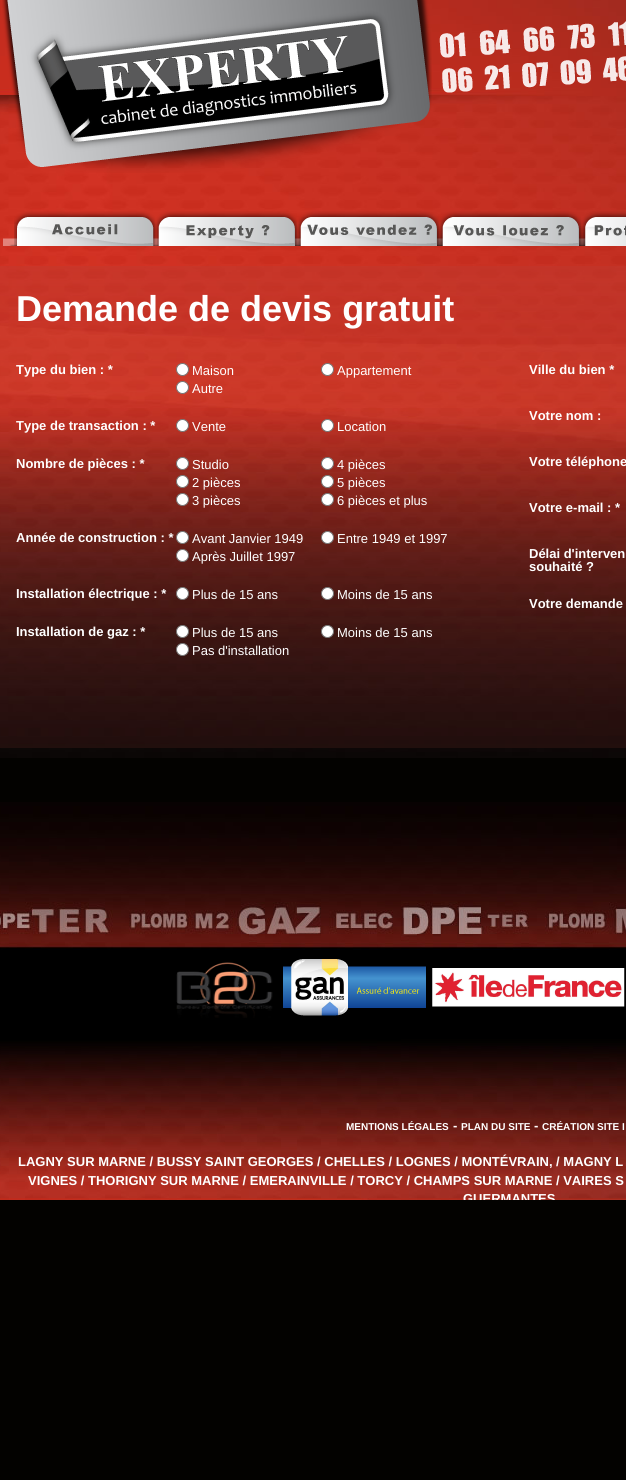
#include <cairo/cairo.h>
#include <math.h>
#include <stddef.h>


static void draw_image(cairo_t *cr, const char *path, double x, double y, double w, double h) {
  cairo_surface_t *image = cairo_image_surface_create_from_png(path);
  cairo_save(cr);
  cairo_set_source_surface(cr, image, x, y);
  cairo_rectangle(cr, x, y, w, h);
  cairo_fill(cr);
  cairo_restore(cr);
  cairo_surface_destroy(image);
}

static void draw(cairo_t *cr) {
  cairo_set_source_rgb(cr, 3 / 255.0, 2 / 255.0, 0);
  cairo_paint(cr);
  draw_image(cr, "images/1.png", 0, 0, 626, 758);
  draw_image(cr, "images/2.png", 2, 0, 430, 173);
  draw_image(cr, "images/3.png", 439, 21, 187, 72);
  draw_image(cr, "images/4.png", 3, 226, 583, 20);
  draw_image(cr, "images/5.png", 14, 211, 142, 35);
  draw_image(cr, "images/6.png", 156, 211, 142, 35);
  draw_image(cr, "images/7.png", 298, 211, 142, 35);
  draw_image(cr, "images/8.png", 440, 211, 142, 35);
  draw_image(cr, "images/9.png", 582, 211, 44, 35);
  draw_image(cr, "images/10.png", 0, 266, 626, 482);
  cairo_set_source_rgb(cr, 1, 1, 1);
  cairo_arc(cr, 182.5, 369.5, 6, 0, 2 * M_PI);
  cairo_fill_preserve(cr);
  cairo_set_source_rgb(cr, 118 / 255.0, 118 / 255.0, 118 / 255.0);
  cairo_set_line_width(cr, 1);
  cairo_stroke(cr);
  cairo_set_source_rgb(cr, 1, 1, 1);
  cairo_arc(cr, 327.5, 369.5, 6, 0, 2 * M_PI);
  cairo_fill_preserve(cr);
  cairo_set_source_rgb(cr, 118 / 255.0, 118 / 255.0, 118 / 255.0);
  cairo_stroke(cr);
  cairo_set_source_rgb(cr, 1, 1, 1);
  cairo_arc(cr, 182.5, 387.5, 6, 0, 2 * M_PI);
  cairo_fill_preserve(cr);
  cairo_set_source_rgb(cr, 118 / 255.0, 118 / 255.0, 118 / 255.0);
  cairo_stroke(cr);
  cairo_set_source_rgb(cr, 1, 1, 1);
  cairo_arc(cr, 182.5, 425.5, 6, 0, 2 * M_PI);
  cairo_fill_preserve(cr);
  cairo_set_source_rgb(cr, 118 / 255.0, 118 / 255.0, 118 / 255.0);
  cairo_stroke(cr);
  cairo_set_source_rgb(cr, 1, 1, 1);
  cairo_arc(cr, 327.5, 425.5, 6, 0, 2 * M_PI);
  cairo_fill_preserve(cr);
  cairo_set_source_rgb(cr, 118 / 255.0, 118 / 255.0, 118 / 255.0);
  cairo_stroke(cr);
  cairo_set_source_rgb(cr, 1, 1, 1);
  cairo_arc(cr, 182.5, 463.5, 6, 0, 2 * M_PI);
  cairo_fill_preserve(cr);
  cairo_set_source_rgb(cr, 118 / 255.0, 118 / 255.0, 118 / 255.0);
  cairo_stroke(cr);
  cairo_set_source_rgb(cr, 1, 1, 1);
  cairo_arc(cr, 327.5, 463.5, 6, 0, 2 * M_PI);
  cairo_fill_preserve(cr);
  cairo_set_source_rgb(cr, 118 / 255.0, 118 / 255.0, 118 / 255.0);
  cairo_stroke(cr);
  cairo_set_source_rgb(cr, 1, 1, 1);
  cairo_arc(cr, 182.5, 481.5, 6, 0, 2 * M_PI);
  cairo_fill_preserve(cr);
  cairo_set_source_rgb(cr, 118 / 255.0, 118 / 255.0, 118 / 255.0);
  cairo_stroke(cr);
  cairo_set_source_rgb(cr, 1, 1, 1);
  cairo_arc(cr, 327.5, 481.5, 6, 0, 2 * M_PI);
  cairo_fill_preserve(cr);
  cairo_set_source_rgb(cr, 118 / 255.0, 118 / 255.0, 118 / 255.0);
  cairo_stroke(cr);
  cairo_set_source_rgb(cr, 1, 1, 1);
  cairo_arc(cr, 182.5, 499.5, 6, 0, 2 * M_PI);
  cairo_fill_preserve(cr);
  cairo_set_source_rgb(cr, 118 / 255.0, 118 / 255.0, 118 / 255.0);
  cairo_stroke(cr);
  cairo_set_source_rgb(cr, 1, 1, 1);
  cairo_arc(cr, 327.5, 499.5, 6, 0, 2 * M_PI);
  cairo_fill_preserve(cr);
  cairo_set_source_rgb(cr, 118 / 255.0, 118 / 255.0, 118 / 255.0);
  cairo_stroke(cr);
  cairo_set_source_rgb(cr, 1, 1, 1);
  cairo_arc(cr, 182.5, 537.5, 6, 0, 2 * M_PI);
  cairo_fill_preserve(cr);
  cairo_set_source_rgb(cr, 118 / 255.0, 118 / 255.0, 118 / 255.0);
  cairo_stroke(cr);
  cairo_set_source_rgb(cr, 1, 1, 1);
  cairo_arc(cr, 327.5, 537.5, 6, 0, 2 * M_PI);
  cairo_fill_preserve(cr);
  cairo_set_source_rgb(cr, 118 / 255.0, 118 / 255.0, 118 / 255.0);
  cairo_stroke(cr);
  cairo_set_source_rgb(cr, 1, 1, 1);
  cairo_arc(cr, 182.5, 555.5, 6, 0, 2 * M_PI);
  cairo_fill_preserve(cr);
  cairo_set_source_rgb(cr, 118 / 255.0, 118 / 255.0, 118 / 255.0);
  cairo_stroke(cr);
  cairo_set_source_rgb(cr, 1, 1, 1);
  cairo_arc(cr, 182.5, 593.5, 6, 0, 2 * M_PI);
  cairo_fill_preserve(cr);
  cairo_set_source_rgb(cr, 118 / 255.0, 118 / 255.0, 118 / 255.0);
  cairo_stroke(cr);
  cairo_set_source_rgb(cr, 1, 1, 1);
  cairo_arc(cr, 327.5, 593.5, 6, 0, 2 * M_PI);
  cairo_fill_preserve(cr);
  cairo_set_source_rgb(cr, 118 / 255.0, 118 / 255.0, 118 / 255.0);
  cairo_stroke(cr);
  cairo_set_source_rgb(cr, 1, 1, 1);
  cairo_arc(cr, 182.5, 631.5, 6, 0, 2 * M_PI);
  cairo_fill_preserve(cr);
  cairo_set_source_rgb(cr, 118 / 255.0, 118 / 255.0, 118 / 255.0);
  cairo_stroke(cr);
  cairo_set_source_rgb(cr, 1, 1, 1);
  cairo_arc(cr, 327.5, 631.5, 6, 0, 2 * M_PI);
  cairo_fill_preserve(cr);
  cairo_set_source_rgb(cr, 118 / 255.0, 118 / 255.0, 118 / 255.0);
  cairo_stroke(cr);
  cairo_set_source_rgb(cr, 1, 1, 1);
  cairo_arc(cr, 182.5, 649.5, 6, 0, 2 * M_PI);
  cairo_fill_preserve(cr);
  cairo_set_source_rgb(cr, 118 / 255.0, 118 / 255.0, 118 / 255.0);
  cairo_stroke(cr);
  draw_image(cr, "images/11.png", 0, 802, 626, 398);
  draw_image(cr, "images/12.png", 176, 962, 97, 56);
  draw_image(cr, "images/13.png", 283, 959, 143, 57);
  draw_image(cr, "images/14.png", 432, 968, 193, 39);
  cairo_select_font_face(cr, "Liberation Sans", CAIRO_FONT_SLANT_NORMAL, CAIRO_FONT_WEIGHT_BOLD);
  cairo_set_font_size(cr, 36);
  cairo_set_source_rgb(cr, 1, 1, 1);
  cairo_move_to(cr, 16, 321);
  cairo_show_text(cr, "Demande de devis gratuit");
  cairo_set_font_size(cr, 13);
  cairo_move_to(cr, 16, 374);
  cairo_show_text(cr, "Type du bien : *");
  cairo_select_font_face(cr, "Liberation Sans", CAIRO_FONT_SLANT_NORMAL, CAIRO_FONT_WEIGHT_NORMAL);
  cairo_move_to(cr, 192, 375);
  cairo_show_text(cr, "Maison");
  cairo_move_to(cr, 337, 375);
  cairo_show_text(cr, "Appartement");
  cairo_move_to(cr, 192, 393);
  cairo_show_text(cr, "Autre");
  cairo_select_font_face(cr, "Liberation Sans", CAIRO_FONT_SLANT_NORMAL, CAIRO_FONT_WEIGHT_BOLD);
  cairo_move_to(cr, 16, 430);
  cairo_show_text(cr, "Type de transaction : *");
  cairo_select_font_face(cr, "Liberation Sans", CAIRO_FONT_SLANT_NORMAL, CAIRO_FONT_WEIGHT_NORMAL);
  cairo_move_to(cr, 192, 431);
  cairo_show_text(cr, "Vente");
  cairo_move_to(cr, 337, 431);
  cairo_show_text(cr, "Location");
  cairo_select_font_face(cr, "Liberation Sans", CAIRO_FONT_SLANT_NORMAL, CAIRO_FONT_WEIGHT_BOLD);
  cairo_move_to(cr, 16, 468);
  cairo_show_text(cr, "Nombre de pièces : *");
  cairo_select_font_face(cr, "Liberation Sans", CAIRO_FONT_SLANT_NORMAL, CAIRO_FONT_WEIGHT_NORMAL);
  cairo_move_to(cr, 192, 469);
  cairo_show_text(cr, "Studio");
  cairo_move_to(cr, 337, 469);
  cairo_show_text(cr, "4 pièces");
  cairo_move_to(cr, 192, 487);
  cairo_show_text(cr, "2 pièces");
  cairo_move_to(cr, 337, 487);
  cairo_show_text(cr, "5 pièces");
  cairo_move_to(cr, 192, 505);
  cairo_show_text(cr, "3 pièces");
  cairo_move_to(cr, 337, 505);
  cairo_show_text(cr, "6 pièces et plus");
  cairo_select_font_face(cr, "Liberation Sans", CAIRO_FONT_SLANT_NORMAL, CAIRO_FONT_WEIGHT_BOLD);
  cairo_move_to(cr, 16, 542);
  cairo_show_text(cr, "Année de construction : *");
  cairo_select_font_face(cr, "Liberation Sans", CAIRO_FONT_SLANT_NORMAL, CAIRO_FONT_WEIGHT_NORMAL);
  cairo_move_to(cr, 192, 543);
  cairo_show_text(cr, "Avant Janvier 1949");
  cairo_move_to(cr, 337, 543);
  cairo_show_text(cr, "Entre 1949 et 1997");
  cairo_move_to(cr, 192, 561);
  cairo_show_text(cr, "Après Juillet 1997");
  cairo_select_font_face(cr, "Liberation Sans", CAIRO_FONT_SLANT_NORMAL, CAIRO_FONT_WEIGHT_BOLD);
  cairo_move_to(cr, 16, 598);
  cairo_show_text(cr, "Installation électrique : *");
  cairo_select_font_face(cr, "Liberation Sans", CAIRO_FONT_SLANT_NORMAL, CAIRO_FONT_WEIGHT_NORMAL);
  cairo_move_to(cr, 192, 599);
  cairo_show_text(cr, "Plus de 15 ans");
  cairo_move_to(cr, 337, 599);
  cairo_show_text(cr, "Moins de 15 ans");
  cairo_select_font_face(cr, "Liberation Sans", CAIRO_FONT_SLANT_NORMAL, CAIRO_FONT_WEIGHT_BOLD);
  cairo_move_to(cr, 16, 636);
  cairo_show_text(cr, "Installation de gaz : *");
  cairo_select_font_face(cr, "Liberation Sans", CAIRO_FONT_SLANT_NORMAL, CAIRO_FONT_WEIGHT_NORMAL);
  cairo_move_to(cr, 192, 637);
  cairo_show_text(cr, "Plus de 15 ans");
  cairo_move_to(cr, 337, 637);
  cairo_show_text(cr, "Moins de 15 ans");
  cairo_move_to(cr, 192, 655);
  cairo_show_text(cr, "Pas d'installation");
  cairo_select_font_face(cr, "Liberation Sans", CAIRO_FONT_SLANT_NORMAL, CAIRO_FONT_WEIGHT_BOLD);
  cairo_move_to(cr, 529, 374);
  cairo_show_text(cr, "Ville du bien *");
  cairo_move_to(cr, 529, 420);
  cairo_show_text(cr, "Votre nom :");
  cairo_move_to(cr, 529, 466);
  cairo_show_text(cr, "Votre téléphone");
  cairo_move_to(cr, 529, 512);
  cairo_show_text(cr, "Votre e-mail : *");
  cairo_move_to(cr, 529, 558);
  cairo_show_text(cr, "Délai d'interven");
  cairo_move_to(cr, 529, 571);
  cairo_show_text(cr, "souhaité ?");
  cairo_move_to(cr, 529, 608);
  cairo_show_text(cr, "Votre demande");
  cairo_set_font_size(cr, 10);
  cairo_move_to(cr, 346, 1130);
  cairo_show_text(cr, "MENTIONS LÉGALES");
  cairo_set_font_size(cr, 13);
  cairo_move_to(cr, 453, 1130);
  cairo_show_text(cr, "-");
  cairo_set_font_size(cr, 10);
  cairo_move_to(cr, 461, 1130);
  cairo_show_text(cr, "PLAN DU SITE");
  cairo_set_font_size(cr, 13);
  cairo_move_to(cr, 534, 1130);
  cairo_show_text(cr, "-");
  cairo_set_font_size(cr, 10);
  cairo_move_to(cr, 542, 1130);
  cairo_show_text(cr, "CRÉATION SITE I");
  cairo_set_font_size(cr, 13);
  cairo_move_to(cr, 18, 1166);
  cairo_show_text(cr, "LAGNY SUR MARNE / BUSSY SAINT GEORGES / CHELLES / LOGNES / MONTÉVRAIN, / MAGNY L");
  cairo_move_to(cr, 28, 1185);
  cairo_show_text(cr, "VIGNES / THORIGNY SUR MARNE / EMERAINVILLE / TORCY / CHAMPS SUR MARNE / VAIRES S");
  cairo_save(cr);
  cairo_rectangle(cr, 0, 758, 626, 442);
  cairo_clip(cr);
  cairo_move_to(cr, 463, 1203);
  cairo_show_text(cr, "GUERMANTES");
  cairo_restore(cr);
}

int main(void) {
  cairo_surface_t *surface = cairo_image_surface_create(CAIRO_FORMAT_RGB24, 626, 1480);
  cairo_t *cr = cairo_create(surface);
  cairo_font_options_t *options = cairo_font_options_create();
  cairo_font_options_set_hint_metrics(options, CAIRO_HINT_METRICS_OFF);
  cairo_font_options_set_hint_style(options, CAIRO_HINT_STYLE_NONE);
  cairo_set_font_options(cr, options);
  cairo_set_miter_limit(cr, 4);
  draw(cr);
  cairo_surface_write_to_png(surface, "out.png");
  cairo_font_options_destroy(options);
  cairo_destroy(cr);
  cairo_surface_destroy(surface);
  return 0;
}
